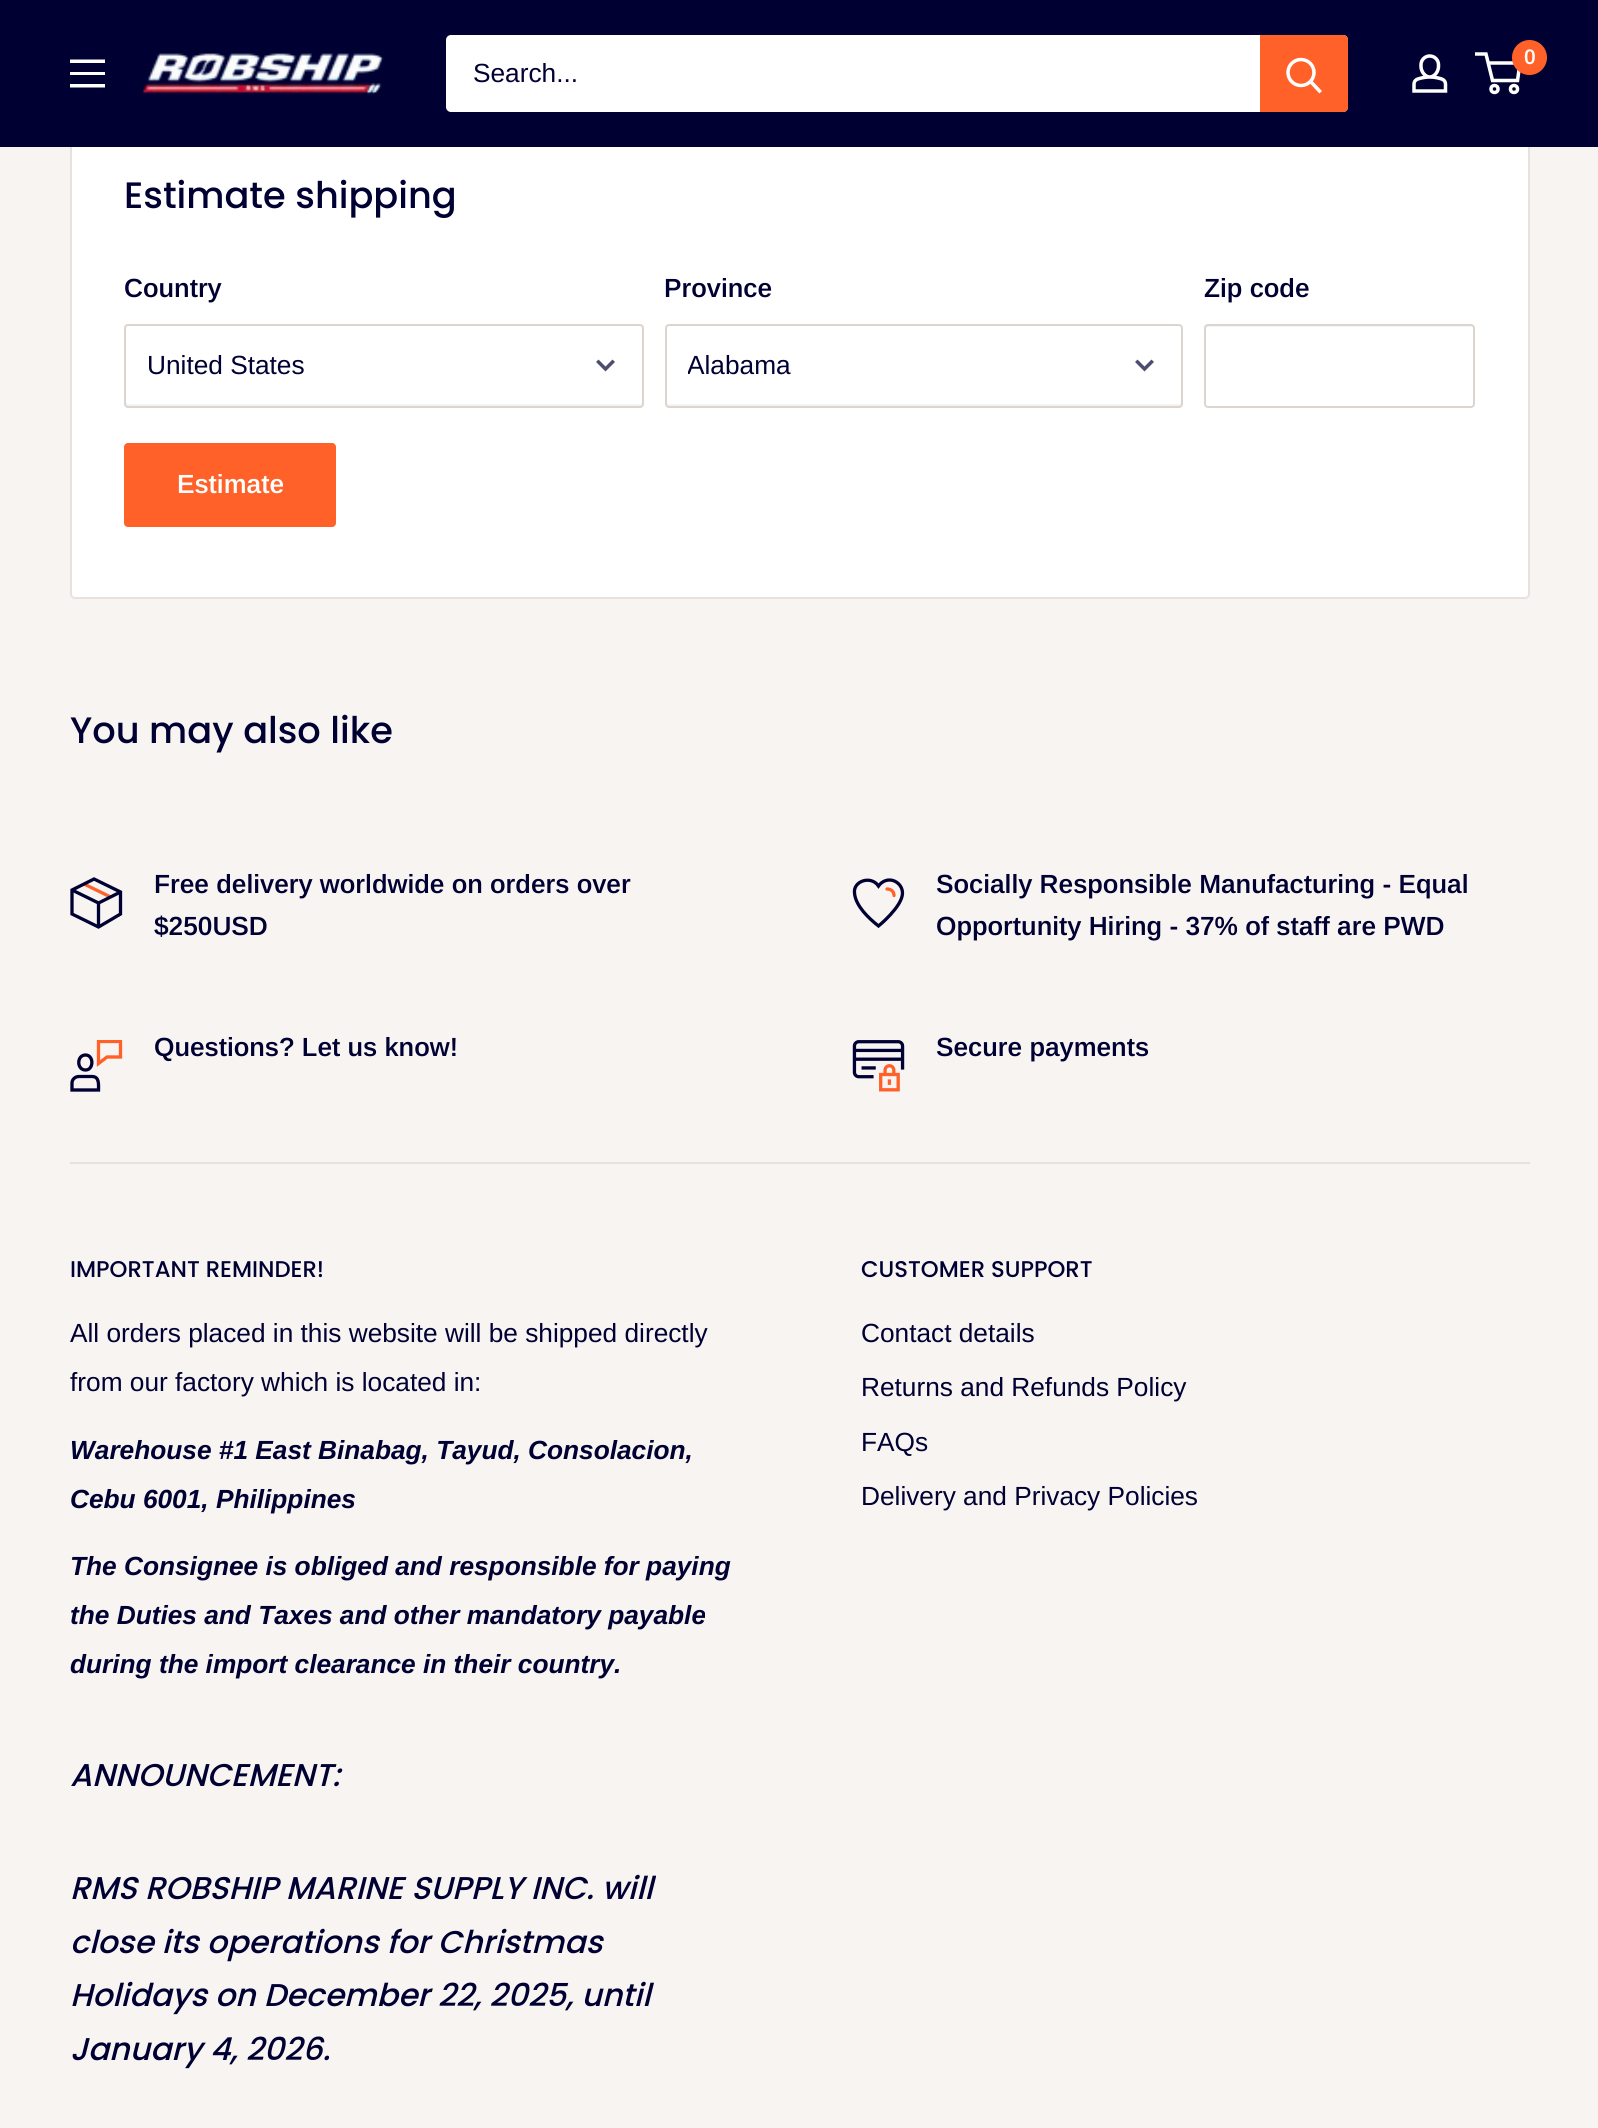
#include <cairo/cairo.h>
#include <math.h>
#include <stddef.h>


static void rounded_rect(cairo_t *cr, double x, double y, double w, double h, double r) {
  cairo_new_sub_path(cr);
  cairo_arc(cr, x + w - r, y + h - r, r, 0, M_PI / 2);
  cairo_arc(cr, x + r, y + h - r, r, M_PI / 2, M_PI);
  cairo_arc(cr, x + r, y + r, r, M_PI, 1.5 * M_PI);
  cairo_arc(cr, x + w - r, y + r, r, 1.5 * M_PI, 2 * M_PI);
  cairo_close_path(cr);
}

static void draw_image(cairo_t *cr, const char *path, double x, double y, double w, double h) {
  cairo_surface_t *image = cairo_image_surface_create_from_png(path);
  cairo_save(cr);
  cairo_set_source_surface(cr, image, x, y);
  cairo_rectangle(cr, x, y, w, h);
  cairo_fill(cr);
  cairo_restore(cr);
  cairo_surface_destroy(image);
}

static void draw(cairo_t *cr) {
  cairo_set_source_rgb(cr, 247 / 255.0, 244 / 255.0, 242 / 255.0);
  cairo_paint(cr);
  cairo_set_source_rgb(cr, 1, 1, 1);
  rounded_rect(cr, 71, 115, 1458, 483, 4);
  cairo_fill_preserve(cr);
  cairo_set_source_rgb(cr, 231 / 255.0, 226 / 255.0, 222 / 255.0);
  cairo_stroke(cr);
  cairo_set_source_rgb(cr, 0, 0, 51 / 255.0);
  cairo_rectangle(cr, 0, 0, 1598, 147);
  cairo_fill(cr);
  cairo_set_source_rgb(cr, 1, 1, 1);
  cairo_set_fill_rule(cr, CAIRO_FILL_RULE_EVEN_ODD);
  cairo_new_path(cr);
  cairo_move_to(cr, 70, 84);
  cairo_line_to(cr, 105, 84);
  cairo_line_to(cr, 105, 87.5);
  cairo_line_to(cr, 70, 87.5);
  cairo_close_path(cr);
  cairo_move_to(cr, 70, 59.5);
  cairo_line_to(cr, 105, 59.5);
  cairo_line_to(cr, 105, 63);
  cairo_line_to(cr, 70, 63);
  cairo_close_path(cr);
  cairo_move_to(cr, 70, 72);
  cairo_line_to(cr, 105, 72);
  cairo_line_to(cr, 105, 75);
  cairo_line_to(cr, 70, 75);
  cairo_close_path(cr);
  cairo_fill(cr);
  draw_image(cr, "images/1.png", 142, 53, 242, 42);
  rounded_rect(cr, 446, 35, 902, 77, 5);
  cairo_fill(cr);
  cairo_set_source_rgb(cr, 1, 97 / 255.0, 40 / 255.0);
  cairo_new_path(cr);
  cairo_move_to(cr, 1260, 35);
  cairo_line_to(cr, 1343, 35);
  cairo_curve_to(cr, 1346, 35, 1348, 37, 1348, 40);
  cairo_line_to(cr, 1348, 107);
  cairo_curve_to(cr, 1348, 110, 1346, 112, 1343, 112);
  cairo_line_to(cr, 1260, 112);
  cairo_close_path(cr);
  cairo_fill(cr);
  cairo_new_path(cr);
  cairo_move_to(cr, 1319.5, 91);
  cairo_line_to(cr, 1311, 82);
  cairo_set_source_rgb(cr, 1, 1, 1);
  cairo_set_line_width(cr, 3.5);
  cairo_set_line_cap(cr, CAIRO_LINE_CAP_SQUARE);
  cairo_stroke(cr);
  cairo_arc(cr, 1301, 72.5, 13, 0, 2 * M_PI);
  cairo_set_line_cap(cr, CAIRO_LINE_CAP_BUTT);
  cairo_stroke(cr);
  draw_image(cr, "images/2.png", 1412, 54, 36, 39);
  cairo_arc(cr, 1494.5, 89, 3.5, 0, 2 * M_PI);
  cairo_stroke(cr);
  cairo_arc(cr, 1514, 89, 3.5, 0, 2 * M_PI);
  cairo_stroke(cr);
  cairo_new_path(cr);
  cairo_move_to(cr, 1488, 63);
  cairo_line_to(cr, 1520, 63);
  cairo_line_to(cr, 1517.5, 80.5);
  cairo_line_to(cr, 1492.5, 80.5);
  cairo_line_to(cr, 1486, 54);
  cairo_line_to(cr, 1475, 54);
  cairo_stroke(cr);
  cairo_set_source_rgb(cr, 1, 97 / 255.0, 40 / 255.0);
  cairo_arc(cr, 1529.5, 57.5, 17.5, 0, 2 * M_PI);
  cairo_fill(cr);
  cairo_set_source_rgb(cr, 245 / 255.0, 242 / 255.0, 241 / 255.0);
  cairo_set_fill_rule(cr, CAIRO_FILL_RULE_WINDING);
  cairo_new_path(cr);
  cairo_move_to(cr, 126, 402);
  cairo_line_to(cr, 126, 405);
  cairo_line_to(cr, 127, 406);
  cairo_line_to(cr, 640, 406);
  cairo_curve_to(cr, 642, 406, 642, 404, 642, 402);
  cairo_curve_to(cr, 642, 403, 641, 404, 640, 404);
  cairo_line_to(cr, 128, 404);
  cairo_curve_to(cr, 127, 404, 126, 403, 126, 402);
  cairo_close_path(cr);
  cairo_fill(cr);
  rounded_rect(cr, 125, 325, 518, 82, 3);
  cairo_set_source_rgb(cr, 220 / 255.0, 213 / 255.0, 207 / 255.0);
  cairo_set_line_width(cr, 2);
  cairo_stroke(cr);
  cairo_new_path(cr);
  cairo_move_to(cr, 612.5, 362);
  cairo_line_to(cr, 605.5, 369);
  cairo_line_to(cr, 598.5, 362);
  cairo_set_source_rgb(cr, 77 / 255.0, 77 / 255.0, 112 / 255.0);
  cairo_set_line_width(cr, 3.5);
  cairo_set_line_cap(cr, CAIRO_LINE_CAP_SQUARE);
  cairo_stroke(cr);
  cairo_set_source_rgb(cr, 245 / 255.0, 242 / 255.0, 241 / 255.0);
  cairo_new_path(cr);
  cairo_move_to(cr, 667, 402);
  cairo_curve_to(cr, 667, 404, 667, 406, 669, 406);
  cairo_line_to(cr, 1180, 406);
  cairo_line_to(cr, 1181, 405);
  cairo_line_to(cr, 1181, 402);
  cairo_line_to(cr, 1180, 404);
  cairo_line_to(cr, 668, 404);
  cairo_close_path(cr);
  cairo_fill(cr);
  rounded_rect(cr, 666, 325, 516, 82, 3);
  cairo_set_source_rgb(cr, 220 / 255.0, 213 / 255.0, 207 / 255.0);
  cairo_set_line_width(cr, 2);
  cairo_set_line_cap(cr, CAIRO_LINE_CAP_BUTT);
  cairo_stroke(cr);
  cairo_new_path(cr);
  cairo_move_to(cr, 1151.5, 362);
  cairo_line_to(cr, 1144.5, 369);
  cairo_line_to(cr, 1137.5, 362);
  cairo_set_source_rgb(cr, 77 / 255.0, 77 / 255.0, 112 / 255.0);
  cairo_set_line_width(cr, 3.5);
  cairo_set_line_cap(cr, CAIRO_LINE_CAP_SQUARE);
  cairo_stroke(cr);
  cairo_set_source_rgb(cr, 246 / 255.0, 245 / 255.0, 243 / 255.0);
  cairo_new_path(cr);
  cairo_move_to(cr, 1208, 327);
  cairo_line_to(cr, 1472, 327);
  cairo_curve_to(cr, 1473, 327, 1474, 328, 1474, 329);
  cairo_line_to(cr, 1474, 327);
  cairo_line_to(cr, 1472, 326);
  cairo_line_to(cr, 1208, 326);
  cairo_curve_to(cr, 1206, 326, 1206, 328, 1206, 329);
  cairo_curve_to(cr, 1206, 328, 1207, 327, 1208, 327);
  cairo_close_path(cr);
  cairo_fill(cr);
  rounded_rect(cr, 1205, 325, 269, 82, 3);
  cairo_set_source_rgb(cr, 220 / 255.0, 213 / 255.0, 207 / 255.0);
  cairo_set_line_width(cr, 2);
  cairo_set_line_cap(cr, CAIRO_LINE_CAP_BUTT);
  cairo_stroke(cr);
  cairo_set_source_rgb(cr, 1, 97 / 255.0, 40 / 255.0);
  rounded_rect(cr, 124, 443, 212, 84, 4);
  cairo_fill(cr);
  cairo_new_path(cr);
  cairo_move_to(cr, 84, 884);
  cairo_line_to(cr, 110.5, 897);
  cairo_set_line_width(cr, 3.3);
  cairo_stroke(cr);
  cairo_new_path(cr);
  cairo_move_to(cr, 120.5, 892);
  cairo_line_to(cr, 98.5, 903);
  cairo_line_to(cr, 72, 890);
  cairo_move_to(cr, 98.5, 903);
  cairo_line_to(cr, 98.5, 927);
  cairo_set_source_rgb(cr, 0, 0, 51 / 255.0);
  cairo_stroke(cr);
  cairo_new_path(cr);
  cairo_move_to(cr, 120.5, 892);
  cairo_line_to(cr, 120.5, 914);
  cairo_line_to(cr, 98.5, 927);
  cairo_line_to(cr, 72, 914);
  cairo_line_to(cr, 72, 890);
  cairo_line_to(cr, 94, 879);
  cairo_close_path(cr);
  cairo_set_line_cap(cr, CAIRO_LINE_CAP_SQUARE);
  cairo_stroke(cr);
  cairo_new_path(cr);
  cairo_move_to(cr, 889.5, 880);
  cairo_curve_to(cr, 885, 880, 881, 882.5, 878.5, 886);
  cairo_curve_to(cr, 871, 875, 853, 881, 854.5, 893);
  cairo_curve_to(cr, 855.5, 906, 869, 918.5, 878.5, 926);
  cairo_curve_to(cr, 878.5, 926, 902.5, 906.5, 902.5, 893);
  cairo_curve_to(cr, 902.5, 886, 896.5, 880, 889.5, 880);
  cairo_close_path(cr);
  cairo_stroke(cr);
  cairo_new_path(cr);
  cairo_move_to(cr, 887, 889);
  cairo_curve_to(cr, 891, 889, 894, 891.5, 894, 895.5);
  cairo_set_source_rgb(cr, 1, 97 / 255.0, 40 / 255.0);
  cairo_set_line_cap(cr, CAIRO_LINE_CAP_ROUND);
  cairo_stroke(cr);
  cairo_new_path(cr);
  cairo_move_to(cr, 92, 1076.5);
  cairo_line_to(cr, 79, 1076.5);
  cairo_curve_to(cr, 75, 1076.5, 72, 1079.5, 72, 1083);
  cairo_line_to(cr, 72, 1090);
  cairo_line_to(cr, 98.5, 1090);
  cairo_curve_to(cr, 98.5, 1084.5, 99.5, 1076.5, 92, 1076.5);
  cairo_close_path(cr);
  cairo_move_to(cr, 85.5, 1070);
  cairo_curve_to(cr, 76.5, 1070, 76.5, 1055, 85.5, 1055);
  cairo_curve_to(cr, 94, 1055, 94, 1070, 85.5, 1070);
  cairo_close_path(cr);
  cairo_set_source_rgb(cr, 0, 0, 51 / 255.0);
  cairo_set_line_cap(cr, CAIRO_LINE_CAP_SQUARE);
  cairo_stroke(cr);
  cairo_save(cr);
  cairo_rectangle(cr, 70, 1040, 53, 52);
  cairo_clip(cr);
  cairo_new_path(cr);
  cairo_move_to(cr, 98.5, 1041.5);
  cairo_line_to(cr, 98.5, 1063.5);
  cairo_line_to(cr, 107, 1057);
  cairo_line_to(cr, 120.5, 1057);
  cairo_line_to(cr, 120.5, 1041.5);
  cairo_close_path(cr);
  cairo_set_source_rgb(cr, 1, 97 / 255.0, 40 / 255.0);
  cairo_stroke(cr);
  cairo_restore(cr);
  draw_image(cr, "images/3.png", 852, 1040, 53, 52);
  cairo_set_source_rgb(cr, 231 / 255.0, 226 / 255.0, 222 / 255.0);
  cairo_rectangle(cr, 70, 1162, 1460, 2);
  cairo_fill(cr);
  cairo_select_font_face(cr, "Arimo", CAIRO_FONT_SLANT_NORMAL, CAIRO_FONT_WEIGHT_NORMAL);
  cairo_set_font_size(cr, 26.25);
  cairo_set_source_rgb(cr, 0, 0, 51 / 255.0);
  cairo_move_to(cr, 473, 82);
  cairo_show_text(cr, "Search...");
  cairo_select_font_face(cr, "Arimo SemiBold", CAIRO_FONT_SLANT_NORMAL, CAIRO_FONT_WEIGHT_NORMAL);
  cairo_set_font_size(cr, 21);
  cairo_set_source_rgb(cr, 1, 1, 1);
  cairo_move_to(cr, 1524, 64);
  cairo_show_text(cr, "0");
  cairo_select_font_face(cr, "Poppins Medium", CAIRO_FONT_SLANT_NORMAL, CAIRO_FONT_WEIGHT_NORMAL);
  cairo_set_font_size(cr, 36.75);
  cairo_set_source_rgb(cr, 0, 0, 51 / 255.0);
  cairo_move_to(cr, 124, 208);
  cairo_show_text(cr, "Estimate shipping");
  cairo_select_font_face(cr, "Arimo SemiBold", CAIRO_FONT_SLANT_NORMAL, CAIRO_FONT_WEIGHT_NORMAL);
  cairo_set_font_size(cr, 26.25);
  cairo_move_to(cr, 124, 297);
  cairo_show_text(cr, "Country");
  cairo_select_font_face(cr, "Arimo", CAIRO_FONT_SLANT_NORMAL, CAIRO_FONT_WEIGHT_NORMAL);
  cairo_move_to(cr, 147, 374);
  cairo_show_text(cr, "United States");
  cairo_select_font_face(cr, "Arimo SemiBold", CAIRO_FONT_SLANT_NORMAL, CAIRO_FONT_WEIGHT_NORMAL);
  cairo_move_to(cr, 664, 297);
  cairo_show_text(cr, "Province");
  cairo_save(cr);
  cairo_rectangle(cr, 688, 341, 430, 49);
  cairo_clip(cr);
  cairo_select_font_face(cr, "Arimo", CAIRO_FONT_SLANT_NORMAL, CAIRO_FONT_WEIGHT_NORMAL);
  cairo_move_to(cr, 687, 374);
  cairo_show_text(cr, "Alabama");
  cairo_restore(cr);
  cairo_move_to(cr, 1204, 297);
  cairo_show_text(cr, "Zip code");
  cairo_set_source_rgb(cr, 1, 1, 1);
  cairo_move_to(cr, 177, 493);
  cairo_show_text(cr, "Estimate");
  cairo_select_font_face(cr, "Poppins Medium", CAIRO_FONT_SLANT_NORMAL, CAIRO_FONT_WEIGHT_NORMAL);
  cairo_set_font_size(cr, 36.75);
  cairo_set_source_rgb(cr, 0, 0, 51 / 255.0);
  cairo_move_to(cr, 70, 743);
  cairo_show_text(cr, "You may also like");
  cairo_select_font_face(cr, "Arimo SemiBold", CAIRO_FONT_SLANT_NORMAL, CAIRO_FONT_WEIGHT_NORMAL);
  cairo_set_font_size(cr, 26.25);
  cairo_move_to(cr, 154, 893);
  cairo_show_text(cr, "Free delivery worldwide on orders over");
  cairo_move_to(cr, 154, 935);
  cairo_show_text(cr, "$250USD");
  cairo_move_to(cr, 936, 893);
  cairo_show_text(cr, "Socially Responsible Manufacturing - Equal");
  cairo_move_to(cr, 936, 935);
  cairo_show_text(cr, "Opportunity Hiring - 37% of staff are PWD");
  cairo_move_to(cr, 154, 1056);
  cairo_show_text(cr, "Questions? Let us know!");
  cairo_move_to(cr, 936, 1056);
  cairo_show_text(cr, "Secure payments");
  cairo_select_font_face(cr, "Poppins Medium", CAIRO_FONT_SLANT_NORMAL, CAIRO_FONT_WEIGHT_NORMAL);
  cairo_set_font_size(cr, 22.75);
  cairo_move_to(cr, 70, 1277);
  cairo_show_text(cr, "IMPORTANT REMINDER!");
  cairo_select_font_face(cr, "Arimo", CAIRO_FONT_SLANT_NORMAL, CAIRO_FONT_WEIGHT_NORMAL);
  cairo_set_font_size(cr, 26.25);
  cairo_move_to(cr, 70, 1342);
  cairo_show_text(cr, "All orders placed in this website will be shipped directly");
  cairo_move_to(cr, 70, 1391);
  cairo_show_text(cr, "from our factory which is located in:");
  cairo_select_font_face(cr, "Arimo", CAIRO_FONT_SLANT_ITALIC, CAIRO_FONT_WEIGHT_BOLD);
  cairo_move_to(cr, 70, 1459);
  cairo_show_text(cr, "Warehouse #1 East Binabag, Tayud, Consolacion,");
  cairo_move_to(cr, 70, 1508);
  cairo_show_text(cr, "Cebu 6001, Philippines");
  cairo_move_to(cr, 70, 1575);
  cairo_show_text(cr, "The Consignee is obliged and responsible for paying");
  cairo_move_to(cr, 70, 1624);
  cairo_show_text(cr, "the Duties and Taxes and other mandatory payable");
  cairo_move_to(cr, 70, 1673);
  cairo_show_text(cr, "during the import clearance in their country.");
  cairo_select_font_face(cr, "Poppins Medium", CAIRO_FONT_SLANT_ITALIC, CAIRO_FONT_WEIGHT_NORMAL);
  cairo_set_font_size(cr, 31.5);
  cairo_move_to(cr, 70, 1786);
  cairo_show_text(cr, "ANNOUNCEMENT:");
  cairo_move_to(cr, 70, 1899);
  cairo_show_text(cr, "RMS ROBSHIP MARINE SUPPLY INC. will");
  cairo_move_to(cr, 70, 1953);
  cairo_show_text(cr, "close its operations for Christmas");
  cairo_move_to(cr, 70, 2006);
  cairo_show_text(cr, "Holidays on December 22, 2025, until");
  cairo_move_to(cr, 70, 2060);
  cairo_show_text(cr, "January 4, 2026.");
  cairo_select_font_face(cr, "Poppins Medium", CAIRO_FONT_SLANT_NORMAL, CAIRO_FONT_WEIGHT_NORMAL);
  cairo_set_font_size(cr, 22.75);
  cairo_move_to(cr, 861, 1277);
  cairo_show_text(cr, "CUSTOMER SUPPORT");
  cairo_select_font_face(cr, "Arimo", CAIRO_FONT_SLANT_NORMAL, CAIRO_FONT_WEIGHT_NORMAL);
  cairo_set_font_size(cr, 26.25);
  cairo_move_to(cr, 861, 1342);
  cairo_show_text(cr, "Contact details");
  cairo_move_to(cr, 861, 1396);
  cairo_show_text(cr, "Returns and Refunds Policy");
  cairo_move_to(cr, 861, 1451);
  cairo_show_text(cr, "FAQs");
  cairo_move_to(cr, 861, 1505);
  cairo_show_text(cr, "Delivery and Privacy Policies");
}

int main(void) {
  cairo_surface_t *surface = cairo_image_surface_create(CAIRO_FORMAT_RGB24, 1598, 2128);
  cairo_t *cr = cairo_create(surface);
  cairo_font_options_t *options = cairo_font_options_create();
  cairo_font_options_set_hint_metrics(options, CAIRO_HINT_METRICS_OFF);
  cairo_font_options_set_hint_style(options, CAIRO_HINT_STYLE_NONE);
  cairo_set_font_options(cr, options);
  cairo_set_miter_limit(cr, 4);
  draw(cr);
  cairo_surface_write_to_png(surface, "out.png");
  cairo_font_options_destroy(options);
  cairo_destroy(cr);
  cairo_surface_destroy(surface);
  return 0;
}
